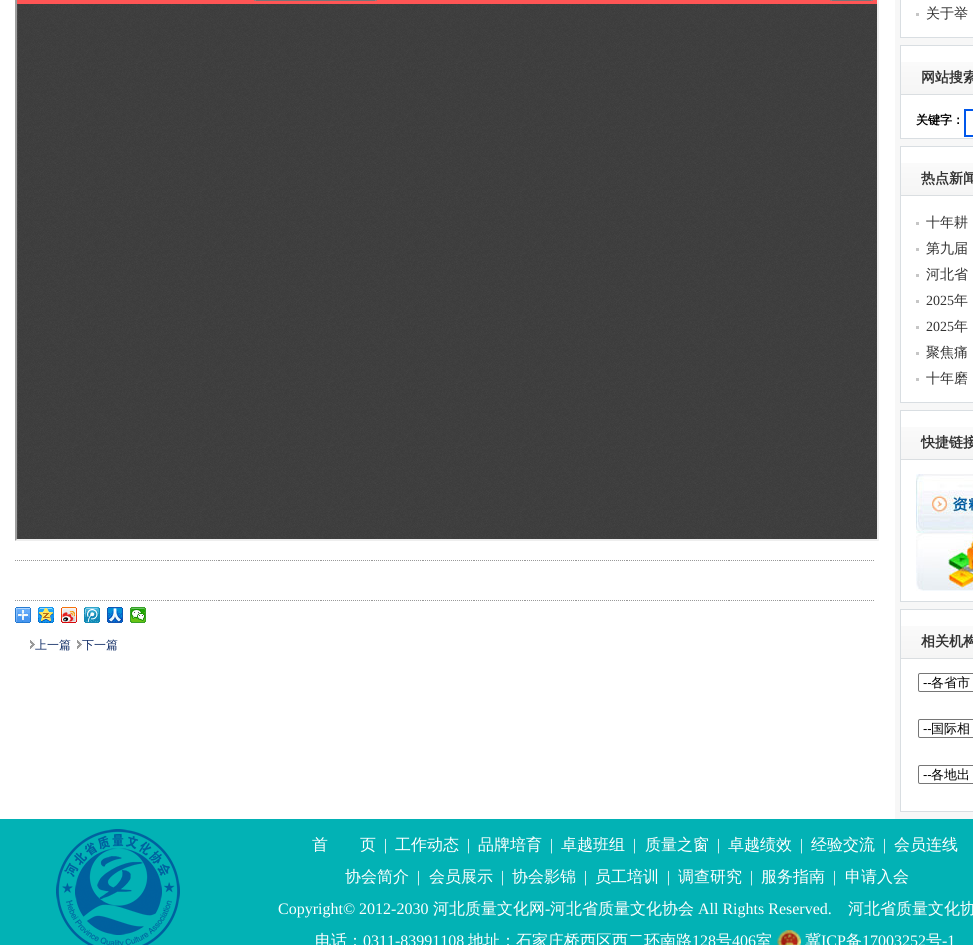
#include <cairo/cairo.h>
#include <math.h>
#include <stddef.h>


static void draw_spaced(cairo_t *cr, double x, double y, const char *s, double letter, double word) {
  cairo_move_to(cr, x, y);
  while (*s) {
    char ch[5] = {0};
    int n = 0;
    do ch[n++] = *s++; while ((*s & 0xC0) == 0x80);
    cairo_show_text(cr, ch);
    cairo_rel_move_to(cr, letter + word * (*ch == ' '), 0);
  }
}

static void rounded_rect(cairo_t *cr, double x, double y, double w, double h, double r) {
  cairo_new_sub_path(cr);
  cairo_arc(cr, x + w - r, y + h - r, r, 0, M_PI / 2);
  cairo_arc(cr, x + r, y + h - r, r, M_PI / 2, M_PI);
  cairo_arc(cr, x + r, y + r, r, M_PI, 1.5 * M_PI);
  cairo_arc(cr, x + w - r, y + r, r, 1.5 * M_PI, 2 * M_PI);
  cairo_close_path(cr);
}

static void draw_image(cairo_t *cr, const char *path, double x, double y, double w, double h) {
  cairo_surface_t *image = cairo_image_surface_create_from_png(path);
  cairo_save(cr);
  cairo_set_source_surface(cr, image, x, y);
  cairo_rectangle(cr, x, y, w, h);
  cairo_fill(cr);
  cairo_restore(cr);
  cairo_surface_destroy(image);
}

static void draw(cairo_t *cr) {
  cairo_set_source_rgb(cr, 2 / 255.0, 178 / 255.0, 181 / 255.0);
  cairo_paint(cr);
  cairo_set_source_rgb(cr, 1, 1, 1);
  cairo_rectangle(cr, 0, 0, 895, 819);
  cairo_fill(cr);
  draw_image(cr, "images/1.png", 15, 560, 859, 1);
  cairo_set_source_rgb(cr, 238 / 255.0, 238 / 255.0, 238 / 255.0);
  cairo_new_path(cr);
  cairo_move_to(cr, 879, -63);
  cairo_line_to(cr, 879, 541);
  cairo_line_to(cr, 877, 539);
  cairo_line_to(cr, 877, -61);
  cairo_close_path(cr);
  cairo_fill(cr);
  cairo_new_path(cr);
  cairo_move_to(cr, 879, 541);
  cairo_line_to(cr, 15, 541);
  cairo_line_to(cr, 17, 539);
  cairo_line_to(cr, 877, 539);
  cairo_close_path(cr);
  cairo_fill(cr);
  cairo_set_source_rgb(cr, 159 / 255.0, 159 / 255.0, 159 / 255.0);
  cairo_new_path(cr);
  cairo_move_to(cr, 15, 541);
  cairo_line_to(cr, 15, -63);
  cairo_line_to(cr, 17, -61);
  cairo_line_to(cr, 17, 539);
  cairo_close_path(cr);
  cairo_fill(cr);
  draw_image(cr, "images/2.png", 17, 0, 860, 539);
  draw_image(cr, "images/1.png", 15, 600, 859, 1);
  draw_image(cr, "images/3.png", 15, 607, 16, 16);
  draw_image(cr, "images/4.png", 38, 607, 16, 16);
  draw_image(cr, "images/5.png", 61, 607, 16, 16);
  draw_image(cr, "images/6.png", 84, 607, 16, 16);
  draw_image(cr, "images/7.png", 107, 607, 16, 16);
  draw_image(cr, "images/8.png", 130, 607, 16, 16);
  draw_image(cr, "images/9.png", 30, 640, 5, 9);
  draw_image(cr, "images/9.png", 77, 640, 5, 9);
  cairo_set_source_rgb(cr, 247 / 255.0, 247 / 255.0, 247 / 255.0);
  cairo_rectangle(cr, 895, 0, 78, 819);
  cairo_fill(cr);
  cairo_set_source_rgb(cr, 1, 1, 1);
  cairo_rectangle(cr, 900.5, -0.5, 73, 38);
  cairo_fill_preserve(cr);
  cairo_set_source_rgb(cr, 217 / 255.0, 222 / 255.0, 226 / 255.0);
  cairo_set_line_width(cr, 1);
  cairo_stroke(cr);
  cairo_set_source_rgb(cr, 198 / 255.0, 198 / 255.0, 198 / 255.0);
  cairo_rectangle(cr, 916, 13, 3, 3);
  cairo_fill(cr);
  cairo_set_source_rgb(cr, 1, 1, 1);
  cairo_rectangle(cr, 900.5, 45.5, 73, 93);
  cairo_fill_preserve(cr);
  cairo_set_source_rgb(cr, 217 / 255.0, 222 / 255.0, 226 / 255.0);
  cairo_stroke(cr);
  draw_image(cr, "images/10.png", 901, 62, 72, 33);
  cairo_rectangle(cr, 965, 110, 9, 26);
  cairo_set_source_rgb(cr, 0, 87 / 255.0, 235 / 255.0);
  cairo_set_line_width(cr, 2);
  cairo_stroke(cr);
  cairo_set_source_rgb(cr, 1, 1, 1);
  cairo_rectangle(cr, 900.5, 146.5, 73, 256);
  cairo_fill_preserve(cr);
  cairo_set_source_rgb(cr, 217 / 255.0, 222 / 255.0, 226 / 255.0);
  cairo_set_line_width(cr, 1);
  cairo_stroke(cr);
  draw_image(cr, "images/10.png", 901, 163, 72, 33);
  cairo_set_source_rgb(cr, 198 / 255.0, 198 / 255.0, 198 / 255.0);
  cairo_rectangle(cr, 916, 222, 3, 3);
  cairo_fill(cr);
  cairo_rectangle(cr, 916, 248, 3, 3);
  cairo_fill(cr);
  cairo_rectangle(cr, 916, 274, 3, 3);
  cairo_fill(cr);
  cairo_rectangle(cr, 916, 300, 3, 3);
  cairo_fill(cr);
  cairo_rectangle(cr, 916, 326, 3, 3);
  cairo_fill(cr);
  cairo_rectangle(cr, 916, 352, 3, 3);
  cairo_fill(cr);
  cairo_rectangle(cr, 916, 378, 3, 3);
  cairo_fill(cr);
  cairo_set_source_rgb(cr, 1, 1, 1);
  cairo_rectangle(cr, 900.5, 410.5, 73, 191);
  cairo_fill_preserve(cr);
  cairo_set_source_rgb(cr, 217 / 255.0, 222 / 255.0, 226 / 255.0);
  cairo_stroke(cr);
  draw_image(cr, "images/10.png", 901, 427, 72, 33);
  draw_image(cr, "images/11.png", 916, 474, 57, 59);
  draw_image(cr, "images/12.png", 916, 533, 57, 58);
  cairo_set_source_rgb(cr, 1, 1, 1);
  cairo_rectangle(cr, 900.5, 609.5, 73, 202);
  cairo_fill_preserve(cr);
  cairo_set_source_rgb(cr, 217 / 255.0, 222 / 255.0, 226 / 255.0);
  cairo_stroke(cr);
  draw_image(cr, "images/10.png", 901, 626, 72, 33);
  rounded_rect(cr, 918.5, 673.5, 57, 18, 1.5);
  cairo_set_source_rgb(cr, 118 / 255.0, 118 / 255.0, 118 / 255.0);
  cairo_stroke(cr);
  rounded_rect(cr, 918.5, 719.5, 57, 18, 1.5);
  cairo_stroke(cr);
  rounded_rect(cr, 918.5, 765.5, 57, 18, 1.5);
  cairo_stroke(cr);
  draw_image(cr, "images/13.png", 56, 829, 124, 116);
  draw_image(cr, "images/14.png", 777, 930, 24, 15);
  cairo_select_font_face(cr, "WenQuanYi Zen Hei Medium", CAIRO_FONT_SLANT_NORMAL, CAIRO_FONT_WEIGHT_NORMAL);
  cairo_set_font_size(cr, 12);
  cairo_set_source_rgb(cr, 18 / 255.0, 46 / 255.0, 103 / 255.0);
  cairo_move_to(cr, 35, 649);
  cairo_show_text(cr, "上一篇");
  cairo_move_to(cr, 82, 649);
  cairo_show_text(cr, "下一篇");
  cairo_set_font_size(cr, 14);
  cairo_set_source_rgb(cr, 51 / 255.0, 51 / 255.0, 51 / 255.0);
  cairo_move_to(cr, 926, 18);
  cairo_show_text(cr, "关于举");
  cairo_select_font_face(cr, "WenQuanYi Zen Hei", CAIRO_FONT_SLANT_NORMAL, CAIRO_FONT_WEIGHT_BOLD);
  cairo_move_to(cr, 921, 82);
  cairo_show_text(cr, "网站搜索");
  cairo_set_font_size(cr, 12);
  cairo_set_source_rgb(cr, 0, 0, 0);
  cairo_move_to(cr, 916, 124);
  cairo_show_text(cr, "关键字：");
  cairo_set_font_size(cr, 14);
  cairo_set_source_rgb(cr, 51 / 255.0, 51 / 255.0, 51 / 255.0);
  cairo_move_to(cr, 921, 183);
  cairo_show_text(cr, "热点新闻");
  cairo_select_font_face(cr, "WenQuanYi Zen Hei Medium", CAIRO_FONT_SLANT_NORMAL, CAIRO_FONT_WEIGHT_NORMAL);
  draw_spaced(cr, 926, 227, "十年耕", 0, -1);
  cairo_move_to(cr, 926, 253);
  cairo_show_text(cr, "第九届");
  cairo_move_to(cr, 926, 279);
  cairo_show_text(cr, "河北省");
  cairo_select_font_face(cr, "Liberation Serif", CAIRO_FONT_SLANT_NORMAL, CAIRO_FONT_WEIGHT_NORMAL);
  cairo_move_to(cr, 926, 305);
  cairo_show_text(cr, "2025");
  cairo_select_font_face(cr, "WenQuanYi Zen Hei Medium", CAIRO_FONT_SLANT_NORMAL, CAIRO_FONT_WEIGHT_NORMAL);
  cairo_move_to(cr, 954, 305);
  cairo_show_text(cr, "年");
  cairo_select_font_face(cr, "Liberation Serif", CAIRO_FONT_SLANT_NORMAL, CAIRO_FONT_WEIGHT_NORMAL);
  cairo_move_to(cr, 926, 331);
  cairo_show_text(cr, "2025");
  cairo_select_font_face(cr, "WenQuanYi Zen Hei Medium", CAIRO_FONT_SLANT_NORMAL, CAIRO_FONT_WEIGHT_NORMAL);
  cairo_move_to(cr, 954, 331);
  cairo_show_text(cr, "年");
  draw_spaced(cr, 926, 357, "聚焦痛", 0, -1);
  draw_spaced(cr, 926, 383, "十年磨", 0, -1);
  cairo_select_font_face(cr, "WenQuanYi Zen Hei", CAIRO_FONT_SLANT_NORMAL, CAIRO_FONT_WEIGHT_BOLD);
  cairo_move_to(cr, 921, 447);
  cairo_show_text(cr, "快捷链接");
  cairo_move_to(cr, 921, 646);
  cairo_show_text(cr, "相关机构");
  cairo_select_font_face(cr, "Liberation Sans", CAIRO_FONT_SLANT_NORMAL, CAIRO_FONT_WEIGHT_NORMAL);
  cairo_set_font_size(cr, 13);
  cairo_set_source_rgb(cr, 0, 0, 0);
  cairo_move_to(cr, 923, 687);
  cairo_show_text(cr, "--");
  cairo_select_font_face(cr, "WenQuanYi Zen Hei Medium", CAIRO_FONT_SLANT_NORMAL, CAIRO_FONT_WEIGHT_NORMAL);
  cairo_move_to(cr, 931, 687);
  cairo_show_text(cr, "各省市");
  cairo_select_font_face(cr, "Liberation Sans", CAIRO_FONT_SLANT_NORMAL, CAIRO_FONT_WEIGHT_NORMAL);
  cairo_move_to(cr, 923, 733);
  cairo_show_text(cr, "--");
  cairo_select_font_face(cr, "WenQuanYi Zen Hei Medium", CAIRO_FONT_SLANT_NORMAL, CAIRO_FONT_WEIGHT_NORMAL);
  cairo_move_to(cr, 931, 733);
  cairo_show_text(cr, "国际相");
  cairo_select_font_face(cr, "Liberation Sans", CAIRO_FONT_SLANT_NORMAL, CAIRO_FONT_WEIGHT_NORMAL);
  cairo_move_to(cr, 923, 779);
  cairo_show_text(cr, "--");
  cairo_select_font_face(cr, "WenQuanYi Zen Hei Medium", CAIRO_FONT_SLANT_NORMAL, CAIRO_FONT_WEIGHT_NORMAL);
  cairo_move_to(cr, 931, 779);
  cairo_show_text(cr, "各地出");
  cairo_set_font_size(cr, 16);
  cairo_set_source_rgb(cr, 1, 1, 1);
  cairo_move_to(cr, 312, 850);
  cairo_show_text(cr, "首　　页");
  cairo_select_font_face(cr, "Liberation Serif", CAIRO_FONT_SLANT_NORMAL, CAIRO_FONT_WEIGHT_NORMAL);
  cairo_move_to(cr, 384, 850);
  cairo_show_text(cr, "|");
  cairo_select_font_face(cr, "WenQuanYi Zen Hei Medium", CAIRO_FONT_SLANT_NORMAL, CAIRO_FONT_WEIGHT_NORMAL);
  cairo_move_to(cr, 395, 850);
  cairo_show_text(cr, "工作动态");
  cairo_select_font_face(cr, "Liberation Serif", CAIRO_FONT_SLANT_NORMAL, CAIRO_FONT_WEIGHT_NORMAL);
  cairo_move_to(cr, 467, 850);
  cairo_show_text(cr, "|");
  cairo_select_font_face(cr, "WenQuanYi Zen Hei Medium", CAIRO_FONT_SLANT_NORMAL, CAIRO_FONT_WEIGHT_NORMAL);
  cairo_move_to(cr, 478, 850);
  cairo_show_text(cr, "品牌培育");
  cairo_select_font_face(cr, "Liberation Serif", CAIRO_FONT_SLANT_NORMAL, CAIRO_FONT_WEIGHT_NORMAL);
  cairo_move_to(cr, 550, 850);
  cairo_show_text(cr, "|");
  cairo_select_font_face(cr, "WenQuanYi Zen Hei Medium", CAIRO_FONT_SLANT_NORMAL, CAIRO_FONT_WEIGHT_NORMAL);
  cairo_move_to(cr, 561, 850);
  cairo_show_text(cr, "卓越班组");
  cairo_select_font_face(cr, "Liberation Serif", CAIRO_FONT_SLANT_NORMAL, CAIRO_FONT_WEIGHT_NORMAL);
  cairo_move_to(cr, 633, 850);
  cairo_show_text(cr, "|");
  cairo_select_font_face(cr, "WenQuanYi Zen Hei Medium", CAIRO_FONT_SLANT_NORMAL, CAIRO_FONT_WEIGHT_NORMAL);
  cairo_move_to(cr, 645, 850);
  cairo_show_text(cr, "质量之窗");
  cairo_select_font_face(cr, "Liberation Serif", CAIRO_FONT_SLANT_NORMAL, CAIRO_FONT_WEIGHT_NORMAL);
  cairo_move_to(cr, 717, 850);
  cairo_show_text(cr, "|");
  cairo_select_font_face(cr, "WenQuanYi Zen Hei Medium", CAIRO_FONT_SLANT_NORMAL, CAIRO_FONT_WEIGHT_NORMAL);
  cairo_move_to(cr, 728, 850);
  cairo_show_text(cr, "卓越绩效");
  cairo_select_font_face(cr, "Liberation Serif", CAIRO_FONT_SLANT_NORMAL, CAIRO_FONT_WEIGHT_NORMAL);
  cairo_move_to(cr, 800, 850);
  cairo_show_text(cr, "|");
  cairo_select_font_face(cr, "WenQuanYi Zen Hei Medium", CAIRO_FONT_SLANT_NORMAL, CAIRO_FONT_WEIGHT_NORMAL);
  cairo_move_to(cr, 811, 850);
  cairo_show_text(cr, "经验交流");
  cairo_select_font_face(cr, "Liberation Serif", CAIRO_FONT_SLANT_NORMAL, CAIRO_FONT_WEIGHT_NORMAL);
  cairo_move_to(cr, 883, 850);
  cairo_show_text(cr, "|");
  cairo_select_font_face(cr, "WenQuanYi Zen Hei Medium", CAIRO_FONT_SLANT_NORMAL, CAIRO_FONT_WEIGHT_NORMAL);
  cairo_move_to(cr, 894, 850);
  cairo_show_text(cr, "会员连线");
  cairo_move_to(cr, 345, 882);
  cairo_show_text(cr, "协会简介");
  cairo_select_font_face(cr, "Liberation Serif", CAIRO_FONT_SLANT_NORMAL, CAIRO_FONT_WEIGHT_NORMAL);
  cairo_move_to(cr, 417, 882);
  cairo_show_text(cr, "|");
  cairo_select_font_face(cr, "WenQuanYi Zen Hei Medium", CAIRO_FONT_SLANT_NORMAL, CAIRO_FONT_WEIGHT_NORMAL);
  cairo_move_to(cr, 429, 882);
  cairo_show_text(cr, "会员展示");
  cairo_select_font_face(cr, "Liberation Serif", CAIRO_FONT_SLANT_NORMAL, CAIRO_FONT_WEIGHT_NORMAL);
  cairo_move_to(cr, 501, 882);
  cairo_show_text(cr, "|");
  cairo_select_font_face(cr, "WenQuanYi Zen Hei Medium", CAIRO_FONT_SLANT_NORMAL, CAIRO_FONT_WEIGHT_NORMAL);
  cairo_move_to(cr, 512, 882);
  cairo_show_text(cr, "协会影锦");
  cairo_select_font_face(cr, "Liberation Serif", CAIRO_FONT_SLANT_NORMAL, CAIRO_FONT_WEIGHT_NORMAL);
  cairo_move_to(cr, 584, 882);
  cairo_show_text(cr, "|");
  cairo_select_font_face(cr, "WenQuanYi Zen Hei Medium", CAIRO_FONT_SLANT_NORMAL, CAIRO_FONT_WEIGHT_NORMAL);
  cairo_move_to(cr, 595, 882);
  cairo_show_text(cr, "员工培训");
  cairo_select_font_face(cr, "Liberation Serif", CAIRO_FONT_SLANT_NORMAL, CAIRO_FONT_WEIGHT_NORMAL);
  cairo_move_to(cr, 667, 882);
  cairo_show_text(cr, "|");
  cairo_select_font_face(cr, "WenQuanYi Zen Hei Medium", CAIRO_FONT_SLANT_NORMAL, CAIRO_FONT_WEIGHT_NORMAL);
  cairo_move_to(cr, 678, 882);
  cairo_show_text(cr, "调查研究");
  cairo_select_font_face(cr, "Liberation Serif", CAIRO_FONT_SLANT_NORMAL, CAIRO_FONT_WEIGHT_NORMAL);
  cairo_move_to(cr, 750, 882);
  cairo_show_text(cr, "|");
  cairo_select_font_face(cr, "WenQuanYi Zen Hei Medium", CAIRO_FONT_SLANT_NORMAL, CAIRO_FONT_WEIGHT_NORMAL);
  cairo_move_to(cr, 761, 882);
  cairo_show_text(cr, "服务指南");
  cairo_select_font_face(cr, "Liberation Serif", CAIRO_FONT_SLANT_NORMAL, CAIRO_FONT_WEIGHT_NORMAL);
  cairo_move_to(cr, 833, 882);
  cairo_show_text(cr, "|");
  cairo_select_font_face(cr, "WenQuanYi Zen Hei Medium", CAIRO_FONT_SLANT_NORMAL, CAIRO_FONT_WEIGHT_NORMAL);
  cairo_move_to(cr, 845, 882);
  cairo_show_text(cr, "申请入会");
  cairo_select_font_face(cr, "Liberation Serif", CAIRO_FONT_SLANT_NORMAL, CAIRO_FONT_WEIGHT_NORMAL);
  cairo_move_to(cr, 278, 914);
  cairo_show_text(cr, "Copyright© 2012-2030");
  cairo_select_font_face(cr, "WenQuanYi Zen Hei Medium", CAIRO_FONT_SLANT_NORMAL, CAIRO_FONT_WEIGHT_NORMAL);
  cairo_move_to(cr, 433, 914);
  cairo_show_text(cr, "河北质量文化网");
  cairo_select_font_face(cr, "Liberation Serif", CAIRO_FONT_SLANT_NORMAL, CAIRO_FONT_WEIGHT_NORMAL);
  cairo_move_to(cr, 545, 914);
  cairo_show_text(cr, "-");
  cairo_select_font_face(cr, "WenQuanYi Zen Hei Medium", CAIRO_FONT_SLANT_NORMAL, CAIRO_FONT_WEIGHT_NORMAL);
  cairo_move_to(cr, 550, 914);
  cairo_show_text(cr, "河北省质量文化协会");
  cairo_select_font_face(cr, "Liberation Serif", CAIRO_FONT_SLANT_NORMAL, CAIRO_FONT_WEIGHT_NORMAL);
  cairo_move_to(cr, 698, 914);
  cairo_show_text(cr, "All Rights Reserved.");
  cairo_select_font_face(cr, "WenQuanYi Zen Hei Medium", CAIRO_FONT_SLANT_NORMAL, CAIRO_FONT_WEIGHT_NORMAL);
  cairo_move_to(cr, 848, 914);
  cairo_show_text(cr, "河北省质量文化协");
  cairo_move_to(cr, 315, 946);
  cairo_show_text(cr, "电话：");
  cairo_select_font_face(cr, "Liberation Serif", CAIRO_FONT_SLANT_NORMAL, CAIRO_FONT_WEIGHT_NORMAL);
  cairo_move_to(cr, 363, 946);
  cairo_show_text(cr, "0311-83991108");
  cairo_select_font_face(cr, "WenQuanYi Zen Hei Medium", CAIRO_FONT_SLANT_NORMAL, CAIRO_FONT_WEIGHT_NORMAL);
  cairo_move_to(cr, 468, 946);
  cairo_show_text(cr, "地址：石家庄桥西区西二环南路");
  cairo_select_font_face(cr, "Liberation Serif", CAIRO_FONT_SLANT_NORMAL, CAIRO_FONT_WEIGHT_NORMAL);
  cairo_move_to(cr, 692, 946);
  cairo_show_text(cr, "128");
  cairo_select_font_face(cr, "WenQuanYi Zen Hei Medium", CAIRO_FONT_SLANT_NORMAL, CAIRO_FONT_WEIGHT_NORMAL);
  cairo_move_to(cr, 716, 946);
  cairo_show_text(cr, "号");
  cairo_select_font_face(cr, "Liberation Serif", CAIRO_FONT_SLANT_NORMAL, CAIRO_FONT_WEIGHT_NORMAL);
  cairo_move_to(cr, 732, 946);
  cairo_show_text(cr, "406");
  cairo_select_font_face(cr, "WenQuanYi Zen Hei Medium", CAIRO_FONT_SLANT_NORMAL, CAIRO_FONT_WEIGHT_NORMAL);
  cairo_move_to(cr, 756, 946);
  cairo_show_text(cr, "室");
  cairo_move_to(cr, 805, 946);
  cairo_show_text(cr, "冀");
  cairo_select_font_face(cr, "Liberation Serif", CAIRO_FONT_SLANT_NORMAL, CAIRO_FONT_WEIGHT_NORMAL);
  cairo_move_to(cr, 821, 946);
  cairo_show_text(cr, "ICP");
  cairo_select_font_face(cr, "WenQuanYi Zen Hei Medium", CAIRO_FONT_SLANT_NORMAL, CAIRO_FONT_WEIGHT_NORMAL);
  cairo_move_to(cr, 846, 946);
  cairo_show_text(cr, "备");
  cairo_select_font_face(cr, "Liberation Serif", CAIRO_FONT_SLANT_NORMAL, CAIRO_FONT_WEIGHT_NORMAL);
  cairo_move_to(cr, 862, 946);
  cairo_show_text(cr, "17003252");
  cairo_select_font_face(cr, "WenQuanYi Zen Hei Medium", CAIRO_FONT_SLANT_NORMAL, CAIRO_FONT_WEIGHT_NORMAL);
  cairo_move_to(cr, 926, 946);
  cairo_show_text(cr, "号");
  cairo_select_font_face(cr, "Liberation Serif", CAIRO_FONT_SLANT_NORMAL, CAIRO_FONT_WEIGHT_NORMAL);
  cairo_move_to(cr, 942, 946);
  cairo_show_text(cr, "-1");
}

int main(void) {
  cairo_surface_t *surface = cairo_image_surface_create(CAIRO_FORMAT_RGB24, 973, 945);
  cairo_t *cr = cairo_create(surface);
  cairo_font_options_t *options = cairo_font_options_create();
  cairo_font_options_set_hint_metrics(options, CAIRO_HINT_METRICS_OFF);
  cairo_font_options_set_hint_style(options, CAIRO_HINT_STYLE_NONE);
  cairo_set_font_options(cr, options);
  cairo_set_miter_limit(cr, 4);
  draw(cr);
  cairo_surface_write_to_png(surface, "out.png");
  cairo_font_options_destroy(options);
  cairo_destroy(cr);
  cairo_surface_destroy(surface);
  return 0;
}
